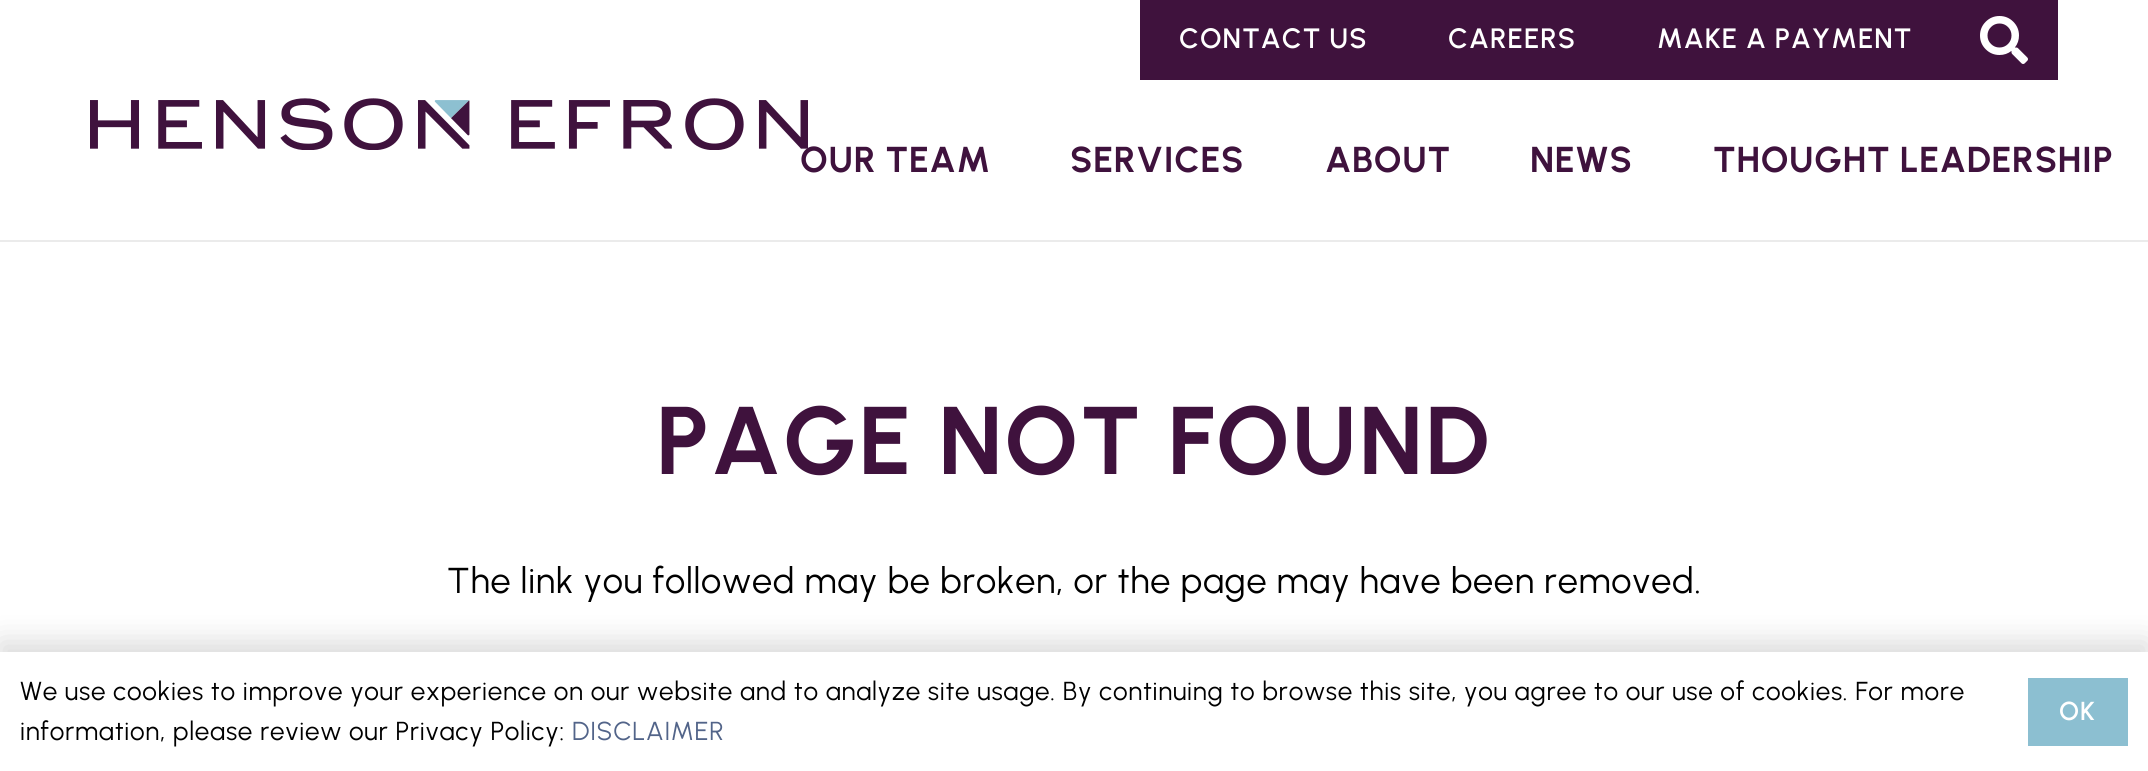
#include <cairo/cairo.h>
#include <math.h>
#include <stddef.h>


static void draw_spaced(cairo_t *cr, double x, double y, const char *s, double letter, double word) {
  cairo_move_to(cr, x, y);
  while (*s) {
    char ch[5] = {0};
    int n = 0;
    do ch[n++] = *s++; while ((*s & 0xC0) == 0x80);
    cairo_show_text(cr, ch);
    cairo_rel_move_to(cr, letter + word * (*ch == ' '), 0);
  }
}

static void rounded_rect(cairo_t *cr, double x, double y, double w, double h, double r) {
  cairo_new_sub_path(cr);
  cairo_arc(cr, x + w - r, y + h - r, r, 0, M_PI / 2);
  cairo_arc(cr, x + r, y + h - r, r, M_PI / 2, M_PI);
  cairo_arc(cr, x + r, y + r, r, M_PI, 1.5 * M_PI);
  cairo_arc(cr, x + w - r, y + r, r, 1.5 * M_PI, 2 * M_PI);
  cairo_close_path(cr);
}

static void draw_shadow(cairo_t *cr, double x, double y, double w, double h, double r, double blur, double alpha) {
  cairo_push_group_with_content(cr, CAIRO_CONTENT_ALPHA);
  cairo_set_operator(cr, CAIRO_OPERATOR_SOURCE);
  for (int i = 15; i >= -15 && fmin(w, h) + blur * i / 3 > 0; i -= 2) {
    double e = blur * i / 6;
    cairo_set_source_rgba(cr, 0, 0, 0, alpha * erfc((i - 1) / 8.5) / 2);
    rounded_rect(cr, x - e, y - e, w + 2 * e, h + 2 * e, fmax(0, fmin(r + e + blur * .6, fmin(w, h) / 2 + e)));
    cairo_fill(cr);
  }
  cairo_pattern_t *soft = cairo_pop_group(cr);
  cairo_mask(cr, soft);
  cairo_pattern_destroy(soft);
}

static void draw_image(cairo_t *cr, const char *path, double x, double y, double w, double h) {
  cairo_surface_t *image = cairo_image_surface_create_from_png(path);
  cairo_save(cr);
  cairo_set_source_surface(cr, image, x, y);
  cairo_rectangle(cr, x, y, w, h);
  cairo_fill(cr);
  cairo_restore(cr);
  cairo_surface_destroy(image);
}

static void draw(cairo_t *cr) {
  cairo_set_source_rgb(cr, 1, 1, 1);
  cairo_paint(cr);
  cairo_set_source_rgb(cr, 63 / 255.0, 18 / 255.0, 61 / 255.0);
  cairo_rectangle(cr, 1140, 0, 918, 80);
  cairo_fill(cr);
  draw_image(cr, "images/1.png", 1980, 16, 48, 48);
  cairo_set_source_rgb(cr, 235 / 255.0, 235 / 255.0, 235 / 255.0);
  cairo_rectangle(cr, 0, 240, 2148, 2);
  cairo_fill(cr);
  draw_image(cr, "images/2.png", 90, 98, 718, 52);
  cairo_set_source_rgb(cr, 0, 0, 0);
  draw_shadow(cr, 0, 642, 2148, 120, 0, 15, 0.15);
  cairo_set_source_rgb(cr, 1, 1, 1);
  cairo_rectangle(cr, 0, 652, 2148, 119);
  cairo_fill(cr);
  cairo_set_source_rgb(cr, 140 / 255.0, 191 / 255.0, 209 / 255.0);
  cairo_rectangle(cr, 2028, 678, 100, 68);
  cairo_fill(cr);
  cairo_select_font_face(cr, "Urbanist SemiBold", CAIRO_FONT_SLANT_NORMAL, CAIRO_FONT_WEIGHT_NORMAL);
  cairo_set_font_size(cr, 28);
  cairo_set_source_rgb(cr, 1, 1, 1);
  draw_spaced(cr, 1179, 48, "CONTACT US", 1.1, 0);
  draw_spaced(cr, 1448, 48, "CAREERS", 1.1, 0);
  draw_spaced(cr, 1657, 48, "MAKE A PAYMENT", 1.1, 0);
  cairo_select_font_face(cr, "Urbanist", CAIRO_FONT_SLANT_NORMAL, CAIRO_FONT_WEIGHT_BOLD);
  cairo_set_font_size(cr, 36);
  cairo_set_source_rgb(cr, 63 / 255.0, 18 / 255.0, 61 / 255.0);
  draw_spaced(cr, 800, 172, "OUR TEAM", 0.72, 0);
  draw_spaced(cr, 1070, 172, "SERVICES", 0.72, 0);
  draw_spaced(cr, 1325, 172, "ABOUT", 0.72, 0);
  draw_spaced(cr, 1530, 172, "NEWS", 0.72, 0);
  draw_spaced(cr, 1713, 172, "THOUGHT LEADERSHIP", 0.72, 0);
  cairo_set_font_size(cr, 96);
  draw_spaced(cr, 656, 474, "PAGE NOT FOUND", 1.9, 0);
  cairo_select_font_face(cr, "Urbanist", CAIRO_FONT_SLANT_NORMAL, CAIRO_FONT_WEIGHT_NORMAL);
  cairo_set_font_size(cr, 36);
  cairo_set_source_rgb(cr, 0, 0, 0);
  draw_spaced(cr, 447, 593, "The link you followed may be broken, or the page may have been removed.", 0.72, 0);
  cairo_set_font_size(cr, 26);
  draw_spaced(cr, 20, 700, "We use cookies to improve your experience on our website and to analyze site usage. By continuing to browse this site, you agree to our use of cookies. For more", 0.72, 0);
  draw_spaced(cr, 20, 740, "information, please review our Privacy Policy:", 0.72, 0);
  cairo_set_source_rgb(cr, 82 / 255.0, 100 / 255.0, 137 / 255.0);
  draw_spaced(cr, 572, 740, "DISCLAIMER", 0.72, 0);
  cairo_select_font_face(cr, "Urbanist SemiBold", CAIRO_FONT_SLANT_NORMAL, CAIRO_FONT_WEIGHT_NORMAL);
  cairo_set_source_rgb(cr, 1, 1, 1);
  draw_spaced(cr, 2059, 720, "OK", 1, 0);
}

int main(void) {
  cairo_surface_t *surface = cairo_image_surface_create(CAIRO_FORMAT_RGB24, 2148, 771);
  cairo_t *cr = cairo_create(surface);
  cairo_font_options_t *options = cairo_font_options_create();
  cairo_font_options_set_hint_metrics(options, CAIRO_HINT_METRICS_OFF);
  cairo_font_options_set_hint_style(options, CAIRO_HINT_STYLE_NONE);
  cairo_set_font_options(cr, options);
  cairo_set_miter_limit(cr, 4);
  draw(cr);
  cairo_surface_write_to_png(surface, "out.png");
  cairo_font_options_destroy(options);
  cairo_destroy(cr);
  cairo_surface_destroy(surface);
  return 0;
}
